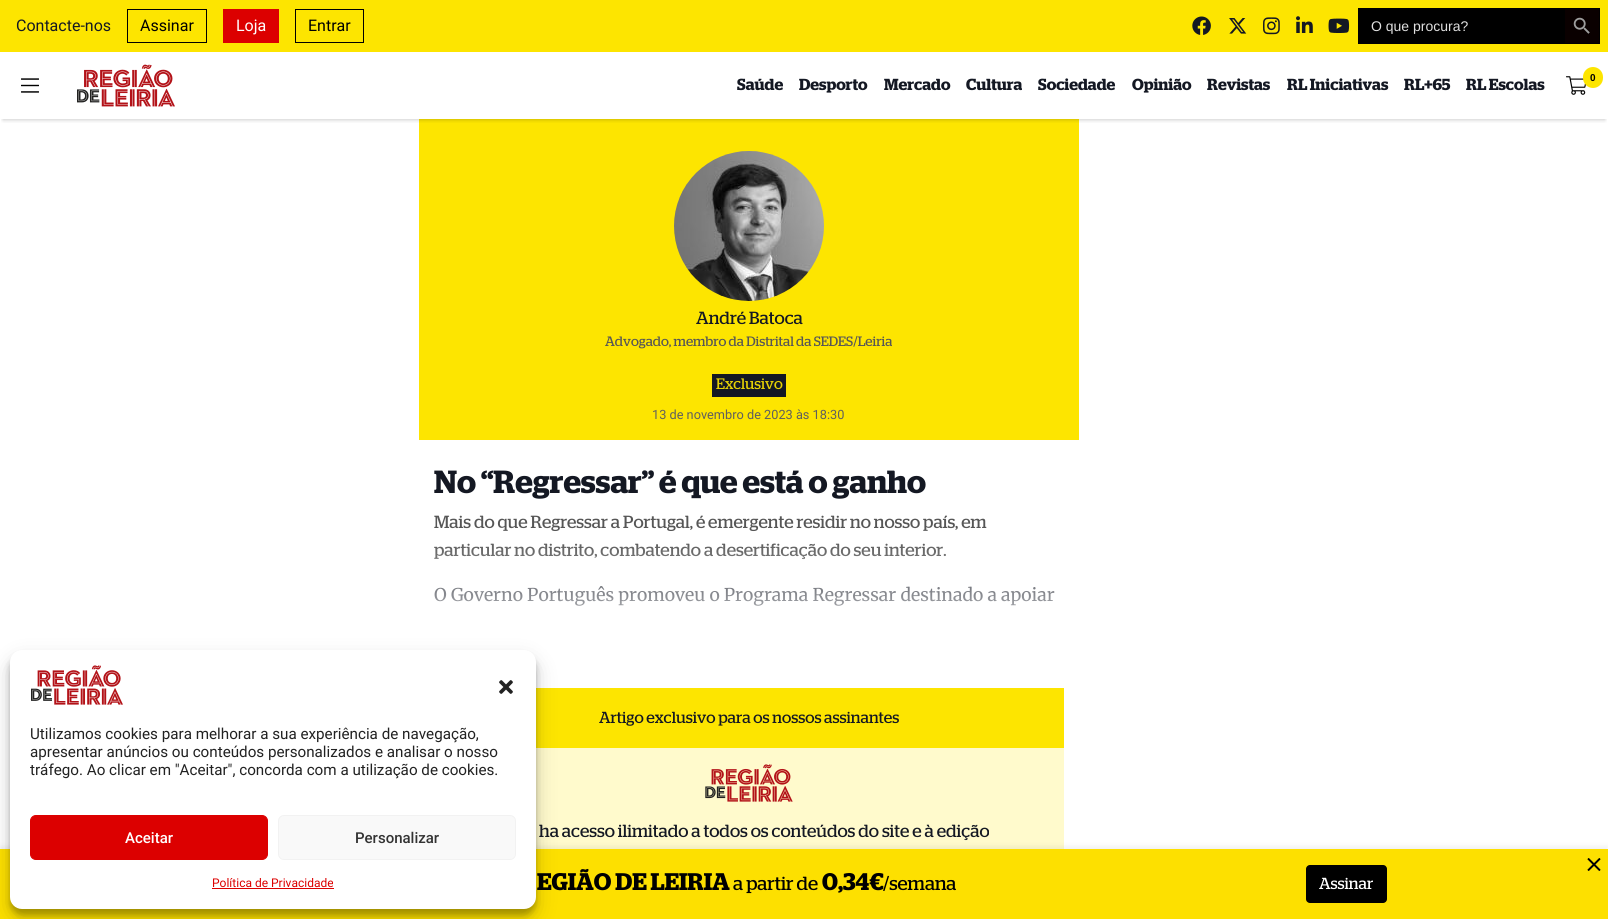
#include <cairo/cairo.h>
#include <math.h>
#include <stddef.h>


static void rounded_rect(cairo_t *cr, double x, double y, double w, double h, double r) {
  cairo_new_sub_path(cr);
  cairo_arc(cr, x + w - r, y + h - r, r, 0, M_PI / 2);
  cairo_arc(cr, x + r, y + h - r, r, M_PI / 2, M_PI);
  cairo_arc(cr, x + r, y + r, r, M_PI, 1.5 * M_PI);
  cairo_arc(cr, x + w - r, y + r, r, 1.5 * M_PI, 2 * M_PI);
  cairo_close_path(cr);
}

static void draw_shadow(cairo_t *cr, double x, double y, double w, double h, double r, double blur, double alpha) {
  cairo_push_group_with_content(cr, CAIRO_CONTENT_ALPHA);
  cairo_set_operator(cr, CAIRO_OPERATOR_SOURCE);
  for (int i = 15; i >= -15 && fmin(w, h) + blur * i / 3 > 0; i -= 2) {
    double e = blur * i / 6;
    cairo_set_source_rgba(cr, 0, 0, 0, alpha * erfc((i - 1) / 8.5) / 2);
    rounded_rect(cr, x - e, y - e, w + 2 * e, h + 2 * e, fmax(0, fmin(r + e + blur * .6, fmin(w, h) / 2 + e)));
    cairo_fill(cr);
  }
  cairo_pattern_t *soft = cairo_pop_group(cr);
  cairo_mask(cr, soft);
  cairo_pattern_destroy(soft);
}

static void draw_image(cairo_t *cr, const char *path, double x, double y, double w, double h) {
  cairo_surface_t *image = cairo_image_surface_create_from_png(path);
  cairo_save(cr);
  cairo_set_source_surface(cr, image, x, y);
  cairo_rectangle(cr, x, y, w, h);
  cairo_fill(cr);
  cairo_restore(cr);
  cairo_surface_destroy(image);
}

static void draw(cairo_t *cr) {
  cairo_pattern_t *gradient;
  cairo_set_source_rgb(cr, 1, 1, 1);
  cairo_paint(cr);
  cairo_set_source_rgb(cr, 253 / 255.0, 229 / 255.0, 0);
  cairo_rectangle(cr, 0, 0, 1608, 52);
  cairo_fill(cr);
  cairo_rectangle(cr, 127.5, 9.5, 79, 33);
  cairo_set_source_rgb(cr, 0, 0, 0);
  cairo_set_line_width(cr, 1);
  cairo_stroke(cr);
  cairo_set_source_rgb(cr, 220 / 255.0, 0, 0);
  cairo_rectangle(cr, 223, 9, 56, 34);
  cairo_fill(cr);
  cairo_rectangle(cr, 295.5, 9.5, 68, 33);
  cairo_set_source_rgb(cr, 0, 0, 0);
  cairo_stroke(cr);
  draw_image(cr, "images/1.png", 1192, 16, 19, 19);
  draw_image(cr, "images/2.png", 1229, 18, 18, 16);
  draw_image(cr, "images/3.png", 1263, 17, 17, 18);
  draw_image(cr, "images/4.png", 1296, 16, 17, 17);
  draw_image(cr, "images/5.png", 1328, 18, 22, 15);
  cairo_rectangle(cr, 1358, 8, 206, 36);
  cairo_fill(cr);
  cairo_set_source_rgb(cr, 10 / 255.0, 0, 0);
  cairo_rectangle(cr, 1564.5, 8.5, 35, 35);
  cairo_fill_preserve(cr);
  cairo_set_source_rgb(cr, 0, 0, 0);
  cairo_stroke(cr);
  draw_image(cr, "images/6.png", 1573, 17, 17, 17);
  cairo_set_source_rgb(cr, 253 / 255.0, 229 / 255.0, 0);
  cairo_rectangle(cr, 419, 119, 660, 321);
  cairo_fill(cr);
  cairo_save(cr);
  cairo_rectangle(cr, 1, 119, 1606, 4);
  cairo_clip(cr);
  cairo_set_source_rgb(cr, 0, 0, 0);
  draw_shadow(cr, 3, 59, 1602, 61, 0, 2, 0.2);
  cairo_restore(cr);
  draw_image(cr, "images/7.png", 21, 78, 18, 15);
  draw_image(cr, "images/8.png", 77, 64, 98, 43);
  draw_image(cr, "images/9.png", 1566, 76, 20, 19);
  rounded_rect(cr, 1583, 67, 20, 21, 10);
  cairo_fill(cr);
  cairo_rectangle(cr, 536, 688, 528, 60);
  cairo_fill(cr);
  cairo_set_source_rgb(cr, 1, 250 / 255.0, 204 / 255.0);
  cairo_rectangle(cr, 536, 748, 528, 101);
  cairo_fill(cr);
  cairo_set_source_rgb(cr, 0, 0, 0);
  draw_shadow(cr, 0, 846, 1608, 70, 0, 2.5, 0.06);
  cairo_set_source_rgb(cr, 253 / 255.0, 224 / 255.0, 0);
  cairo_rectangle(cr, 0, 849, 1608, 70);
  cairo_fill(cr);
  cairo_set_source_rgb(cr, 0, 0, 0);
  draw_shadow(cr, 10, 656, 526, 259, 12, 3, 0.23);
  draw_shadow(cr, 10, 660, 526, 259, 12, 10, 0.19);
  cairo_set_source_rgb(cr, 1, 1, 1);
  rounded_rect(cr, 10, 650, 526, 259, 12);
  cairo_fill(cr);
  draw_image(cr, "images/10.png", 31, 665, 92, 40);
  draw_image(cr, "images/11.png", 499, 680, 14, 14);
  cairo_set_source_rgb(cr, 220 / 255.0, 0, 0);
  rounded_rect(cr, 30.5, 815.5, 237, 44, 5.5);
  cairo_fill_preserve(cr);
  cairo_stroke(cr);
  cairo_set_source_rgb(cr, 249 / 255.0, 249 / 255.0, 249 / 255.0);
  rounded_rect(cr, 278.5, 815.5, 237, 44, 5.5);
  cairo_fill_preserve(cr);
  cairo_set_source_rgb(cr, 242 / 255.0, 242 / 255.0, 242 / 255.0);
  cairo_stroke(cr);
  cairo_set_source_rgb(cr, 220 / 255.0, 0, 0);
  cairo_rectangle(cr, 212, 888, 122, 1);
  cairo_fill(cr);
  draw_image(cr, "images/12.png", 674, 151, 150, 150);
  cairo_set_source_rgb(cr, 20 / 255.0, 24 / 255.0, 35 / 255.0);
  cairo_rectangle(cr, 712, 374, 74, 23);
  cairo_fill(cr);
  draw_image(cr, "images/13.png", 705, 764, 88, 38);
  draw_image(cr, "images/14.png", 1587, 858, 14, 13);
  cairo_set_source_rgb(cr, 0, 0, 0);
  rounded_rect(cr, 1306, 865, 81, 38, 4);
  cairo_fill(cr);
  cairo_select_font_face(cr, "Roboto", CAIRO_FONT_SLANT_NORMAL, CAIRO_FONT_WEIGHT_NORMAL);
  cairo_set_font_size(cr, 16);
  cairo_set_source_rgb(cr, 20 / 255.0, 24 / 255.0, 35 / 255.0);
  cairo_move_to(cr, 16, 31);
  cairo_show_text(cr, "Contacte-nos");
  cairo_set_source_rgb(cr, 0, 0, 0);
  cairo_move_to(cr, 140, 31);
  cairo_show_text(cr, "Assinar");
  cairo_set_source_rgb(cr, 1, 1, 1);
  cairo_move_to(cr, 236, 31);
  cairo_show_text(cr, "Loja");
  cairo_set_source_rgb(cr, 0, 0, 0);
  cairo_move_to(cr, 308, 31);
  cairo_show_text(cr, "Entrar");
  cairo_select_font_face(cr, "Liberation Sans", CAIRO_FONT_SLANT_NORMAL, CAIRO_FONT_WEIGHT_NORMAL);
  cairo_set_font_size(cr, 14);
  cairo_set_source_rgb(cr, 224 / 255.0, 224 / 255.0, 224 / 255.0);
  cairo_move_to(cr, 1371, 31);
  cairo_show_text(cr, "O que procura?");
  cairo_select_font_face(cr, "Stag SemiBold", CAIRO_FONT_SLANT_NORMAL, CAIRO_FONT_WEIGHT_NORMAL);
  cairo_set_font_size(cr, 16);
  cairo_set_source_rgb(cr, 20 / 255.0, 24 / 255.0, 35 / 255.0);
  cairo_move_to(cr, 737, 90);
  cairo_show_text(cr, "Saúde");
  cairo_move_to(cr, 799, 90);
  cairo_show_text(cr, "Desporto");
  cairo_move_to(cr, 884, 90);
  cairo_show_text(cr, "Mercado");
  cairo_move_to(cr, 966, 90);
  cairo_show_text(cr, "Cultura");
  cairo_move_to(cr, 1038, 90);
  cairo_show_text(cr, "Sociedade");
  cairo_move_to(cr, 1132, 90);
  cairo_show_text(cr, "Opinião");
  cairo_move_to(cr, 1207, 90);
  cairo_show_text(cr, "Revistas");
  cairo_move_to(cr, 1287, 90);
  cairo_show_text(cr, "RL Iniciativas");
  cairo_move_to(cr, 1404, 90);
  cairo_show_text(cr, "RL+65");
  cairo_move_to(cr, 1466, 90);
  cairo_show_text(cr, "RL Escolas");
  cairo_select_font_face(cr, "Liberation Sans", CAIRO_FONT_SLANT_NORMAL, CAIRO_FONT_WEIGHT_BOLD);
  cairo_set_font_size(cr, 10);
  cairo_set_source_rgb(cr, 0, 0, 0);
  cairo_move_to(cr, 1590, 81);
  cairo_show_text(cr, "0");
  cairo_select_font_face(cr, "Roboto", CAIRO_FONT_SLANT_NORMAL, CAIRO_FONT_WEIGHT_NORMAL);
  cairo_set_font_size(cr, 15.2);
  cairo_set_source_rgb(cr, 34 / 255.0, 34 / 255.0, 34 / 255.0);
  cairo_move_to(cr, 30, 739);
  cairo_show_text(cr, "Utilizamos cookies para melhorar a sua experiência de navegação,");
  cairo_move_to(cr, 30, 757);
  cairo_show_text(cr, "apresentar anúncios ou conteúdos personalizados e analisar o nosso");
  cairo_move_to(cr, 30, 775);
  cairo_show_text(cr, "tráfego. Ao clicar em \"Aceitar\", concorda com a utilização de cookies.");
  cairo_select_font_face(cr, "Roboto Medium", CAIRO_FONT_SLANT_NORMAL, CAIRO_FONT_WEIGHT_NORMAL);
  cairo_set_font_size(cr, 15);
  cairo_set_source_rgb(cr, 1, 1, 1);
  cairo_move_to(cr, 125, 843);
  cairo_show_text(cr, "Aceitar");
  cairo_set_source_rgb(cr, 51 / 255.0, 51 / 255.0, 51 / 255.0);
  cairo_move_to(cr, 355, 843);
  cairo_show_text(cr, "Personalizar");
  cairo_select_font_face(cr, "Roboto", CAIRO_FONT_SLANT_NORMAL, CAIRO_FONT_WEIGHT_NORMAL);
  cairo_set_font_size(cr, 12);
  cairo_set_source_rgb(cr, 220 / 255.0, 0, 0);
  cairo_move_to(cr, 212, 887);
  cairo_show_text(cr, "Política de Privacidade");
  cairo_select_font_face(cr, "Stag", CAIRO_FONT_SLANT_NORMAL, CAIRO_FONT_WEIGHT_NORMAL);
  cairo_set_font_size(cr, 17.6);
  cairo_set_source_rgb(cr, 20 / 255.0, 24 / 255.0, 35 / 255.0);
  cairo_move_to(cr, 696, 324);
  cairo_show_text(cr, "André Batoca");
  cairo_set_font_size(cr, 13.6);
  cairo_set_source_rgb(cr, 86 / 255.0, 86 / 255.0, 86 / 255.0);
  cairo_move_to(cr, 605, 346);
  cairo_show_text(cr, "Advogado, membro da Distrital da SEDES/Leiria");
  cairo_set_font_size(cr, 15.2);
  cairo_set_source_rgb(cr, 230 / 255.0, 209 / 255.0, 4 / 255.0);
  cairo_move_to(cr, 716, 389);
  cairo_show_text(cr, "Exclusivo");
  cairo_select_font_face(cr, "Roboto", CAIRO_FONT_SLANT_NORMAL, CAIRO_FONT_WEIGHT_NORMAL);
  cairo_set_font_size(cr, 12.75);
  cairo_set_source_rgb(cr, 95 / 255.0, 95 / 255.0, 95 / 255.0);
  cairo_move_to(cr, 652, 419);
  cairo_show_text(cr, "13 de novembro de 2023 às 18:30");
  cairo_select_font_face(cr, "Stag SemiBold", CAIRO_FONT_SLANT_NORMAL, CAIRO_FONT_WEIGHT_NORMAL);
  cairo_set_font_size(cr, 32);
  cairo_set_source_rgb(cr, 20 / 255.0, 24 / 255.0, 35 / 255.0);
  cairo_move_to(cr, 434, 493);
  cairo_show_text(cr, "No “Regressar” é que está o ganho");
  cairo_select_font_face(cr, "Stag", CAIRO_FONT_SLANT_NORMAL, CAIRO_FONT_WEIGHT_NORMAL);
  cairo_set_font_size(cr, 17.6);
  cairo_set_source_rgb(cr, 86 / 255.0, 86 / 255.0, 86 / 255.0);
  cairo_move_to(cr, 434, 528);
  cairo_show_text(cr, "Mais do que Regressar a Portugal, é emergente residir no nosso país, em");
  cairo_move_to(cr, 434, 556);
  cairo_show_text(cr, "particular no distrito, combatendo a desertificação do seu interior.");
  cairo_select_font_face(cr, "Merriweather", CAIRO_FONT_SLANT_NORMAL, CAIRO_FONT_WEIGHT_NORMAL);
  cairo_set_source_rgb(cr, 20 / 255.0, 24 / 255.0, 35 / 255.0);
  cairo_move_to(cr, 434, 601);
  cairo_show_text(cr, "O Governo Português promoveu o Programa Regressar destinado a apoiar");
  gradient = cairo_pattern_create_linear(749, 538, 749, 653);
  cairo_pattern_add_color_stop_rgba(gradient, 0, 1, 1, 1, 0);
  cairo_pattern_add_color_stop_rgba(gradient, 1, 1, 1, 1, 1);
  cairo_set_source(cr, gradient);
  cairo_pattern_destroy(gradient);
  cairo_rectangle(cr, 434, 543, 621, 63);
  cairo_fill(cr);
  cairo_select_font_face(cr, "Stag", CAIRO_FONT_SLANT_NORMAL, CAIRO_FONT_WEIGHT_NORMAL);
  cairo_set_font_size(cr, 16);
  cairo_set_source_rgb(cr, 20 / 255.0, 24 / 255.0, 35 / 255.0);
  cairo_move_to(cr, 599, 723);
  cairo_show_text(cr, "Artigo exclusivo para os nossos assinantes");
  cairo_set_font_size(cr, 17.6);
  cairo_move_to(cr, 539, 837);
  cairo_show_text(cr, "ha acesso ilimitado a todos os conteúdos do site e à edição");
  cairo_select_font_face(cr, "Stag SemiBold", CAIRO_FONT_SLANT_NORMAL, CAIRO_FONT_WEIGHT_NORMAL);
  cairo_set_font_size(cr, 24);
  cairo_set_source_rgb(cr, 0, 0, 0);
  cairo_move_to(cr, 537, 890);
  cairo_show_text(cr, "EGIÃO DE LEIRIA");
  cairo_select_font_face(cr, "Stag", CAIRO_FONT_SLANT_NORMAL, CAIRO_FONT_WEIGHT_NORMAL);
  cairo_set_font_size(cr, 19);
  cairo_move_to(cr, 733, 890);
  cairo_show_text(cr, "a partir de");
  cairo_select_font_face(cr, "Stag SemiBold", CAIRO_FONT_SLANT_NORMAL, CAIRO_FONT_WEIGHT_NORMAL);
  cairo_set_font_size(cr, 24);
  cairo_move_to(cr, 822, 890);
  cairo_show_text(cr, "0,34€");
  cairo_select_font_face(cr, "Stag", CAIRO_FONT_SLANT_NORMAL, CAIRO_FONT_WEIGHT_NORMAL);
  cairo_set_font_size(cr, 19);
  cairo_move_to(cr, 883, 890);
  cairo_show_text(cr, "/semana");
  cairo_set_font_size(cr, 16);
  cairo_set_source_rgb(cr, 1, 1, 1);
  cairo_move_to(cr, 1319, 889);
  cairo_show_text(cr, "Assinar");
}

int main(void) {
  cairo_surface_t *surface = cairo_image_surface_create(CAIRO_FORMAT_RGB24, 1608, 919);
  cairo_t *cr = cairo_create(surface);
  cairo_font_options_t *options = cairo_font_options_create();
  cairo_font_options_set_hint_metrics(options, CAIRO_HINT_METRICS_OFF);
  cairo_font_options_set_hint_style(options, CAIRO_HINT_STYLE_NONE);
  cairo_set_font_options(cr, options);
  cairo_set_miter_limit(cr, 4);
  draw(cr);
  cairo_surface_write_to_png(surface, "out.png");
  cairo_font_options_destroy(options);
  cairo_destroy(cr);
  cairo_surface_destroy(surface);
  return 0;
}
